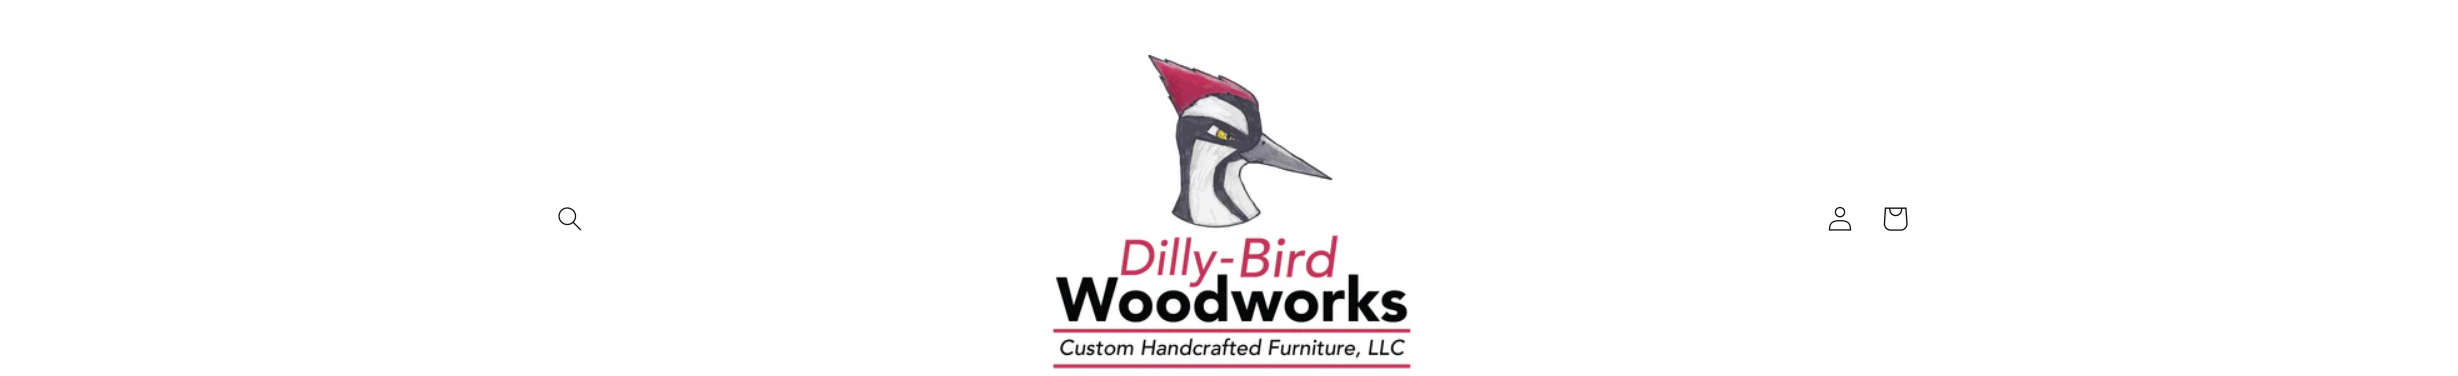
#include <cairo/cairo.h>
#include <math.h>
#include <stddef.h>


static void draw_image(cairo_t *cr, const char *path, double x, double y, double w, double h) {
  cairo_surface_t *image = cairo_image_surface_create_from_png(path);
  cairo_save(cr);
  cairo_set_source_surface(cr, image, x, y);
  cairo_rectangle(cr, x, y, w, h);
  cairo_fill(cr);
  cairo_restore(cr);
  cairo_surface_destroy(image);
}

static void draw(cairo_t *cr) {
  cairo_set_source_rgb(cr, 1, 1, 1);
  cairo_paint(cr);
  draw_image(cr, "images/1.png", 558, 207, 24, 24);
  draw_image(cr, "images/2.png", 1051, 55, 362, 315);
  draw_image(cr, "images/3.png", 1828, 206, 24, 25);
  draw_image(cr, "images/4.png", 1883, 207, 25, 24);
}

int main(void) {
  cairo_surface_t *surface = cairo_image_surface_create(CAIRO_FORMAT_RGB24, 2458, 376);
  cairo_t *cr = cairo_create(surface);
  cairo_font_options_t *options = cairo_font_options_create();
  cairo_font_options_set_hint_metrics(options, CAIRO_HINT_METRICS_OFF);
  cairo_font_options_set_hint_style(options, CAIRO_HINT_STYLE_NONE);
  cairo_set_font_options(cr, options);
  cairo_set_miter_limit(cr, 4);
  draw(cr);
  cairo_surface_write_to_png(surface, "out.png");
  cairo_font_options_destroy(options);
  cairo_destroy(cr);
  cairo_surface_destroy(surface);
  return 0;
}
